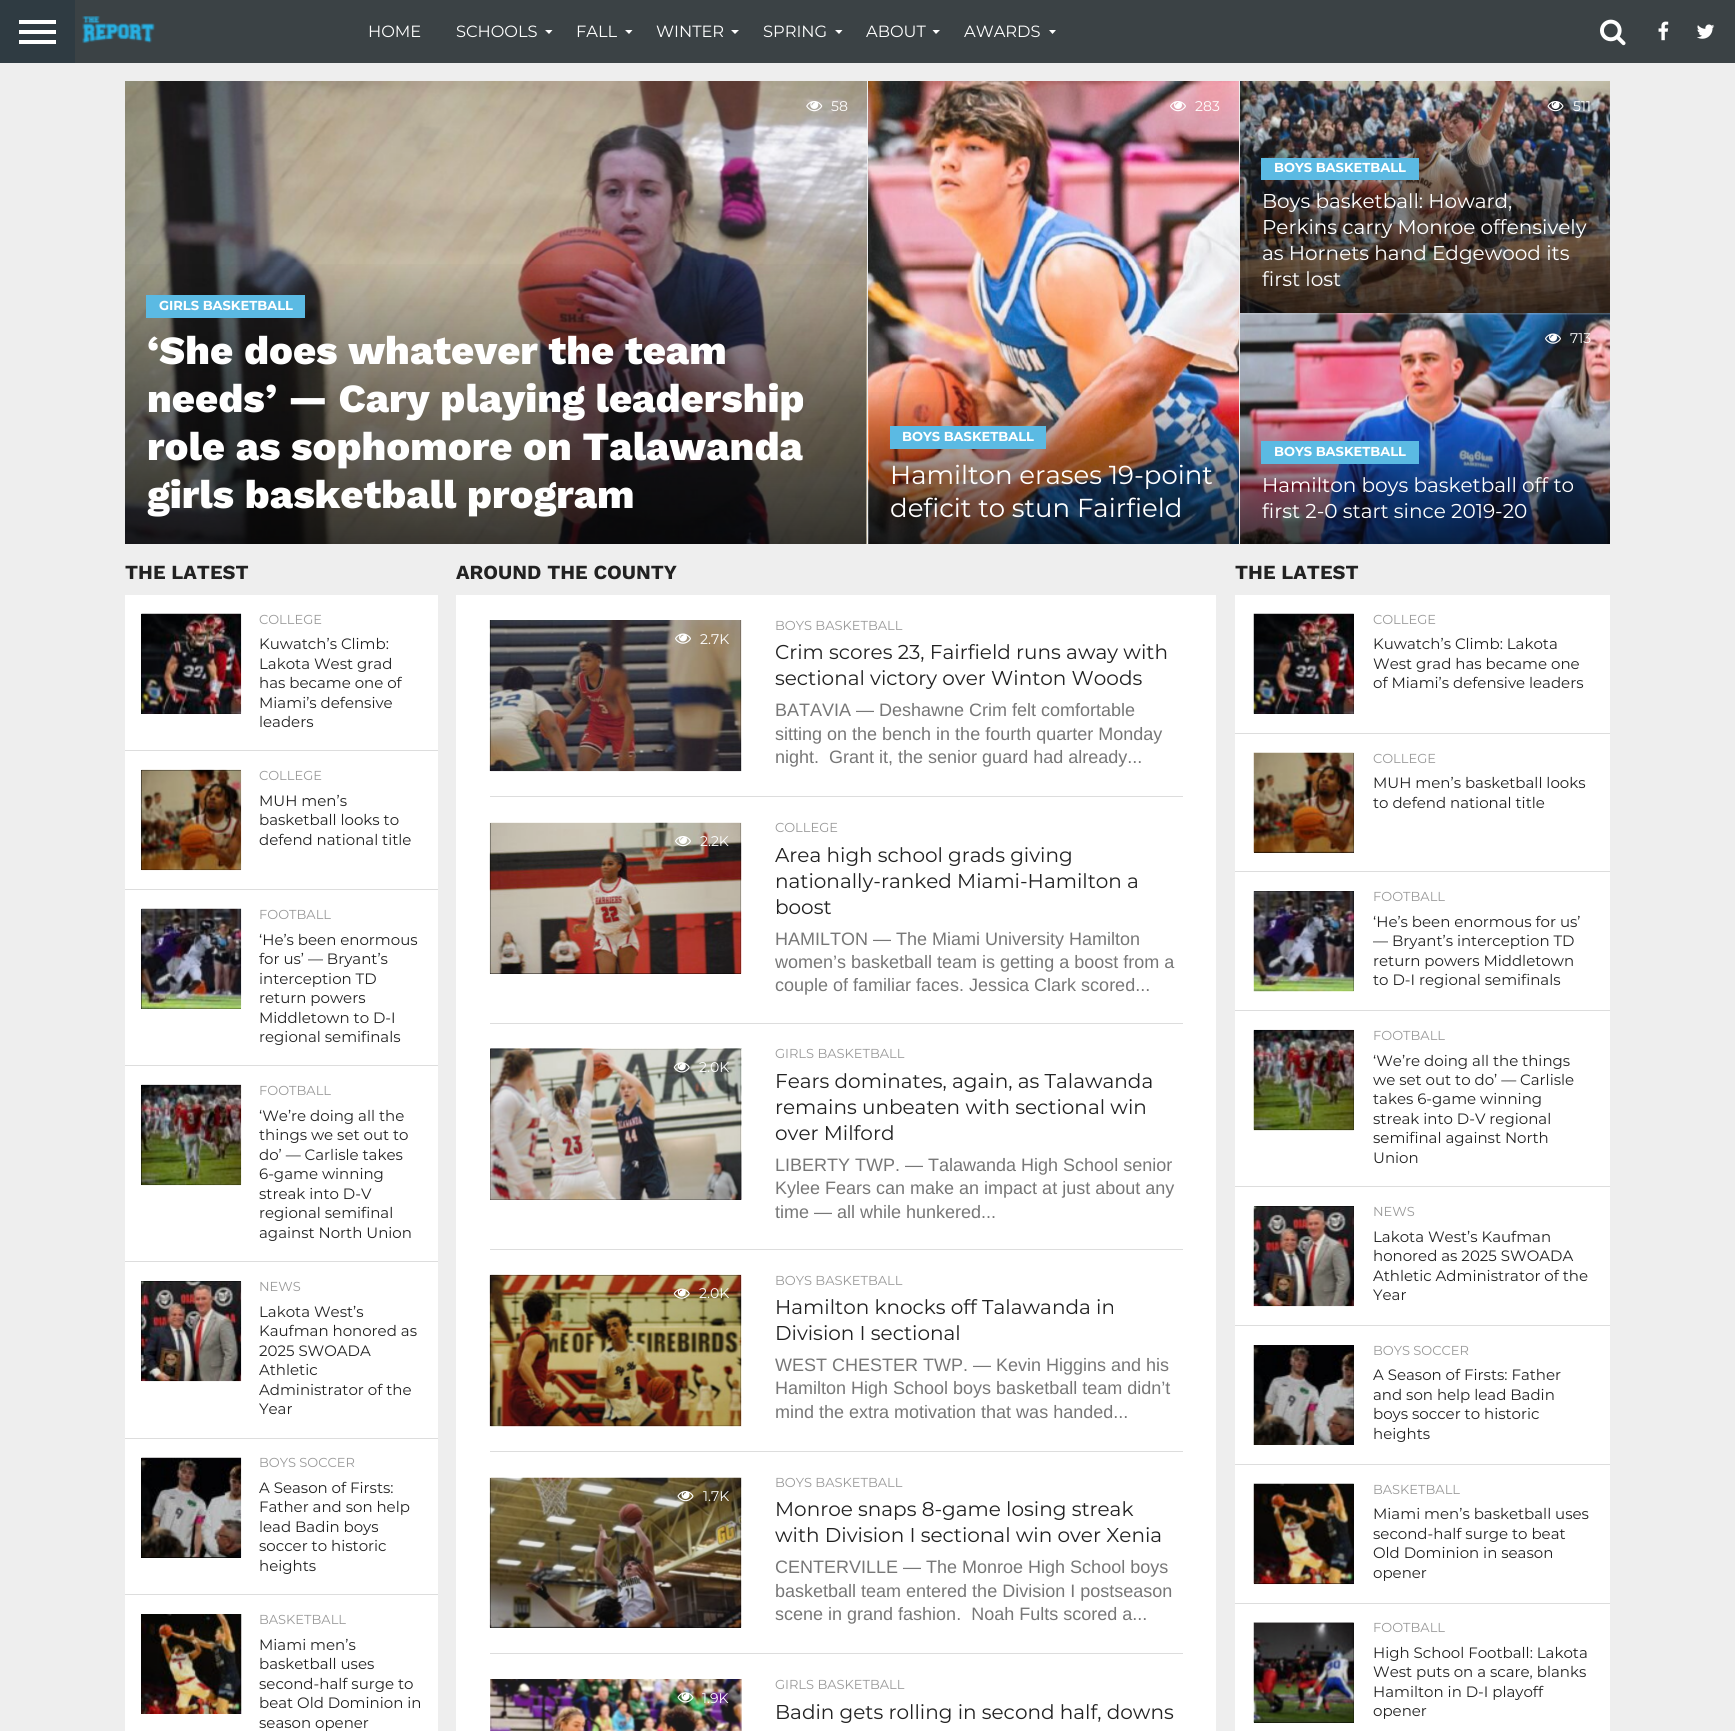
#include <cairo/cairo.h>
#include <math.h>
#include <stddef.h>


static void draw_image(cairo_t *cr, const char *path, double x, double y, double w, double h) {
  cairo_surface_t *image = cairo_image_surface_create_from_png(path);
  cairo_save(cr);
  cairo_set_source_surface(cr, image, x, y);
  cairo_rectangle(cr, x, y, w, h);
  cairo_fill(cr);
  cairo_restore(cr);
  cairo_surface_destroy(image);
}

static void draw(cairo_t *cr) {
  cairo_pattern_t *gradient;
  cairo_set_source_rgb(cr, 238 / 255.0, 238 / 255.0, 238 / 255.0);
  cairo_paint(cr);
  cairo_set_source_rgb(cr, 59 / 255.0, 66 / 255.0, 69 / 255.0);
  cairo_rectangle(cr, 75, 0, 1660, 63);
  cairo_fill(cr);
  cairo_set_source_rgb(cr, 47 / 255.0, 59 / 255.0, 66 / 255.0);
  cairo_rectangle(cr, 0, 0, 75, 63);
  cairo_fill(cr);
  cairo_set_source_rgb(cr, 1, 1, 1);
  cairo_rectangle(cr, 19, 20, 37, 4);
  cairo_fill(cr);
  cairo_rectangle(cr, 19, 30, 37, 4);
  cairo_fill(cr);
  cairo_rectangle(cr, 19, 40, 37, 4);
  cairo_fill(cr);
  draw_image(cr, "images/1.png", 82, 16, 73, 28);
  cairo_new_path(cr);
  cairo_move_to(cr, 545, 30);
  cairo_line_to(cr, 552.5, 30);
  cairo_line_to(cr, 549, 34);
  cairo_close_path(cr);
  cairo_fill(cr);
  cairo_new_path(cr);
  cairo_move_to(cr, 625, 30);
  cairo_line_to(cr, 632.5, 30);
  cairo_line_to(cr, 629, 34);
  cairo_close_path(cr);
  cairo_fill(cr);
  cairo_new_path(cr);
  cairo_move_to(cr, 731, 30);
  cairo_line_to(cr, 739, 30);
  cairo_line_to(cr, 735, 34);
  cairo_close_path(cr);
  cairo_fill(cr);
  cairo_new_path(cr);
  cairo_move_to(cr, 835, 30);
  cairo_line_to(cr, 842.5, 30);
  cairo_line_to(cr, 839, 34);
  cairo_close_path(cr);
  cairo_fill(cr);
  cairo_new_path(cr);
  cairo_move_to(cr, 932.5, 30);
  cairo_line_to(cr, 940, 30);
  cairo_line_to(cr, 936, 34);
  cairo_close_path(cr);
  cairo_fill(cr);
  cairo_new_path(cr);
  cairo_move_to(cr, 1049, 30);
  cairo_line_to(cr, 1056, 30);
  cairo_line_to(cr, 1052.5, 34);
  cairo_close_path(cr);
  cairo_fill(cr);
  draw_image(cr, "images/2.png", 1600, 19, 26, 27);
  draw_image(cr, "images/3.png", 1658, 21, 11, 20);
  draw_image(cr, "images/4.png", 1697, 24, 18, 15);
  draw_image(cr, "images/5.png", 125, 81, 742, 463);
  draw_image(cr, "images/6.png", 806, 101, 17, 11);
  gradient = cairo_pattern_create_linear(496, 256, 496, 544);
  cairo_pattern_add_color_stop_rgba(gradient, 0, 0, 0, 0, 0);
  cairo_pattern_add_color_stop_rgba(gradient, 0.5, 0, 0, 0, 0.4);
  cairo_pattern_add_color_stop_rgba(gradient, 1, 0, 0, 0, 0.7);
  cairo_set_source(cr, gradient);
  cairo_pattern_destroy(gradient);
  cairo_rectangle(cr, 125, 264, 741, 280);
  cairo_fill(cr);
  cairo_set_source_rgb(cr, 91 / 255.0, 186 / 255.0, 227 / 255.0);
  cairo_rectangle(cr, 146, 295, 159, 23);
  cairo_fill(cr);
  draw_image(cr, "images/7.png", 868, 81, 371, 463);
  draw_image(cr, "images/8.png", 1170, 101, 16, 11);
  gradient = cairo_pattern_create_linear(1054, 388, 1054, 544);
  cairo_pattern_add_color_stop_rgba(gradient, 0, 0, 0, 0, 0);
  cairo_pattern_add_color_stop_rgba(gradient, 0.5, 0, 0, 0, 0.4);
  cairo_pattern_add_color_stop_rgba(gradient, 1, 0, 0, 0, 0.7);
  cairo_set_source(cr, gradient);
  cairo_pattern_destroy(gradient);
  cairo_rectangle(cr, 869, 392, 370, 152);
  cairo_fill(cr);
  cairo_set_source_rgb(cr, 91 / 255.0, 186 / 255.0, 227 / 255.0);
  cairo_rectangle(cr, 890, 426, 156, 23);
  cairo_fill(cr);
  draw_image(cr, "images/9.png", 1240, 81, 370, 232);
  draw_image(cr, "images/10.png", 1547, 101, 17, 11);
  gradient = cairo_pattern_create_linear(1425, 119, 1425, 313);
  cairo_pattern_add_color_stop_rgba(gradient, 0, 0, 0, 0, 0);
  cairo_pattern_add_color_stop_rgba(gradient, 0.5, 0, 0, 0, 0.4);
  cairo_pattern_add_color_stop_rgba(gradient, 1, 0, 0, 0, 0.7);
  cairo_set_source(cr, gradient);
  cairo_pattern_destroy(gradient);
  cairo_rectangle(cr, 1240, 124, 370, 189);
  cairo_fill(cr);
  cairo_set_source_rgb(cr, 91 / 255.0, 186 / 255.0, 227 / 255.0);
  cairo_rectangle(cr, 1261, 158, 158, 22);
  cairo_fill(cr);
  draw_image(cr, "images/11.png", 1240, 313, 370, 231);
  draw_image(cr, "images/12.png", 1545, 333, 16, 11);
  gradient = cairo_pattern_create_linear(1425, 403, 1425, 544);
  cairo_pattern_add_color_stop_rgba(gradient, 0, 0, 0, 0, 0);
  cairo_pattern_add_color_stop_rgba(gradient, 0.5, 0, 0, 0, 0.4);
  cairo_pattern_add_color_stop_rgba(gradient, 1, 0, 0, 0, 0.7);
  cairo_set_source(cr, gradient);
  cairo_pattern_destroy(gradient);
  cairo_rectangle(cr, 1240, 407, 370, 137);
  cairo_fill(cr);
  cairo_set_source_rgb(cr, 91 / 255.0, 186 / 255.0, 227 / 255.0);
  cairo_rectangle(cr, 1261, 441, 158, 23);
  cairo_fill(cr);
  cairo_set_source_rgb(cr, 1, 1, 1);
  cairo_rectangle(cr, 125, 595, 313, 1136);
  cairo_fill(cr);
  cairo_set_source_rgb(cr, 0, 0, 0);
  cairo_rectangle(cr, 141, 614, 100, 100);
  cairo_fill(cr);
  draw_image(cr, "images/13.png", 141, 613, 101, 101);
  cairo_set_source_rgb(cr, 221 / 255.0, 221 / 255.0, 221 / 255.0);
  cairo_rectangle(cr, 125, 750, 313, 1);
  cairo_fill(cr);
  cairo_set_source_rgb(cr, 0, 0, 0);
  cairo_rectangle(cr, 141, 770, 100, 100);
  cairo_fill(cr);
  draw_image(cr, "images/14.png", 141, 769, 101, 102);
  cairo_set_source_rgb(cr, 221 / 255.0, 221 / 255.0, 221 / 255.0);
  cairo_rectangle(cr, 125, 889, 313, 1);
  cairo_fill(cr);
  cairo_set_source_rgb(cr, 0, 0, 0);
  cairo_rectangle(cr, 141, 909, 100, 100);
  cairo_fill(cr);
  draw_image(cr, "images/15.png", 141, 908, 101, 101);
  cairo_set_source_rgb(cr, 221 / 255.0, 221 / 255.0, 221 / 255.0);
  cairo_rectangle(cr, 125, 1065, 313, 1);
  cairo_fill(cr);
  cairo_set_source_rgb(cr, 0, 0, 0);
  cairo_rectangle(cr, 141, 1085, 100, 100);
  cairo_fill(cr);
  draw_image(cr, "images/16.png", 141, 1084, 101, 102);
  cairo_set_source_rgb(cr, 221 / 255.0, 221 / 255.0, 221 / 255.0);
  cairo_rectangle(cr, 125, 1261, 313, 1);
  cairo_fill(cr);
  cairo_set_source_rgb(cr, 0, 0, 0);
  cairo_rectangle(cr, 141, 1281, 100, 100);
  cairo_fill(cr);
  draw_image(cr, "images/17.png", 141, 1281, 101, 101);
  cairo_set_source_rgb(cr, 221 / 255.0, 221 / 255.0, 221 / 255.0);
  cairo_rectangle(cr, 125, 1438, 313, 1);
  cairo_fill(cr);
  cairo_set_source_rgb(cr, 0, 0, 0);
  cairo_rectangle(cr, 141, 1458, 100, 100);
  cairo_fill(cr);
  draw_image(cr, "images/18.png", 141, 1457, 101, 101);
  cairo_set_source_rgb(cr, 221 / 255.0, 221 / 255.0, 221 / 255.0);
  cairo_rectangle(cr, 125, 1594, 313, 1);
  cairo_fill(cr);
  cairo_set_source_rgb(cr, 0, 0, 0);
  cairo_rectangle(cr, 141, 1614, 100, 100);
  cairo_fill(cr);
  draw_image(cr, "images/19.png", 141, 1614, 101, 100);
  cairo_set_source_rgb(cr, 1, 1, 1);
  cairo_rectangle(cr, 456, 595, 760, 1136);
  cairo_fill(cr);
  cairo_set_source_rgb(cr, 0, 0, 0);
  cairo_rectangle(cr, 490, 620, 251, 151);
  cairo_fill(cr);
  draw_image(cr, "images/20.png", 489, 620, 253, 152);
  draw_image(cr, "images/21.png", 675, 633, 16, 11);
  cairo_set_source_rgb(cr, 221 / 255.0, 221 / 255.0, 221 / 255.0);
  cairo_rectangle(cr, 490, 796, 693, 1);
  cairo_fill(cr);
  cairo_set_source_rgb(cr, 0, 0, 0);
  cairo_rectangle(cr, 490, 823, 251, 151);
  cairo_fill(cr);
  draw_image(cr, "images/22.png", 489, 822, 253, 152);
  draw_image(cr, "images/23.png", 675, 836, 16, 11);
  cairo_set_source_rgb(cr, 221 / 255.0, 221 / 255.0, 221 / 255.0);
  cairo_rectangle(cr, 490, 1023, 693, 1);
  cairo_fill(cr);
  cairo_set_source_rgb(cr, 0, 0, 0);
  cairo_rectangle(cr, 490, 1049, 251, 151);
  cairo_fill(cr);
  draw_image(cr, "images/24.png", 490, 1048, 252, 152);
  draw_image(cr, "images/25.png", 673, 1062, 17, 11);
  cairo_set_source_rgb(cr, 221 / 255.0, 221 / 255.0, 221 / 255.0);
  cairo_rectangle(cr, 490, 1249, 693, 1);
  cairo_fill(cr);
  cairo_set_source_rgb(cr, 0, 0, 0);
  cairo_rectangle(cr, 490, 1275, 251, 151);
  cairo_fill(cr);
  draw_image(cr, "images/26.png", 489, 1274, 253, 153);
  draw_image(cr, "images/27.png", 673, 1288, 17, 11);
  cairo_set_source_rgb(cr, 221 / 255.0, 221 / 255.0, 221 / 255.0);
  cairo_rectangle(cr, 490, 1451, 693, 1);
  cairo_fill(cr);
  cairo_set_source_rgb(cr, 0, 0, 0);
  cairo_rectangle(cr, 490, 1478, 251, 150);
  cairo_fill(cr);
  draw_image(cr, "images/28.png", 489, 1477, 253, 151);
  draw_image(cr, "images/29.png", 677, 1491, 17, 11);
  cairo_set_source_rgb(cr, 221 / 255.0, 221 / 255.0, 221 / 255.0);
  cairo_rectangle(cr, 490, 1653, 693, 1);
  cairo_fill(cr);
  draw_image(cr, "images/30.png", 490, 1679, 252, 52);
  draw_image(cr, "images/31.png", 677, 1692, 17, 11);
  cairo_set_source_rgb(cr, 1, 1, 1);
  cairo_rectangle(cr, 1235, 595, 375, 1136);
  cairo_fill(cr);
  cairo_set_source_rgb(cr, 0, 0, 0);
  cairo_rectangle(cr, 1254, 614, 100, 100);
  cairo_fill(cr);
  draw_image(cr, "images/32.png", 1253, 613, 101, 101);
  cairo_set_source_rgb(cr, 221 / 255.0, 221 / 255.0, 221 / 255.0);
  cairo_rectangle(cr, 1235, 733, 375, 1);
  cairo_fill(cr);
  cairo_set_source_rgb(cr, 0, 0, 0);
  cairo_rectangle(cr, 1254, 753, 100, 100);
  cairo_fill(cr);
  draw_image(cr, "images/33.png", 1253, 752, 101, 101);
  cairo_set_source_rgb(cr, 221 / 255.0, 221 / 255.0, 221 / 255.0);
  cairo_rectangle(cr, 1235, 871, 375, 1);
  cairo_fill(cr);
  cairo_set_source_rgb(cr, 0, 0, 0);
  cairo_rectangle(cr, 1254, 891, 100, 100);
  cairo_fill(cr);
  draw_image(cr, "images/34.png", 1253, 891, 101, 101);
  cairo_set_source_rgb(cr, 221 / 255.0, 221 / 255.0, 221 / 255.0);
  cairo_rectangle(cr, 1235, 1010, 375, 1);
  cairo_fill(cr);
  cairo_set_source_rgb(cr, 0, 0, 0);
  cairo_rectangle(cr, 1254, 1030, 100, 100);
  cairo_fill(cr);
  draw_image(cr, "images/35.png", 1253, 1029, 101, 102);
  cairo_set_source_rgb(cr, 221 / 255.0, 221 / 255.0, 221 / 255.0);
  cairo_rectangle(cr, 1235, 1186, 375, 1);
  cairo_fill(cr);
  cairo_set_source_rgb(cr, 0, 0, 0);
  cairo_rectangle(cr, 1254, 1206, 100, 100);
  cairo_fill(cr);
  draw_image(cr, "images/36.png", 1253, 1206, 101, 101);
  cairo_set_source_rgb(cr, 221 / 255.0, 221 / 255.0, 221 / 255.0);
  cairo_rectangle(cr, 1235, 1325, 375, 1);
  cairo_fill(cr);
  cairo_set_source_rgb(cr, 0, 0, 0);
  cairo_rectangle(cr, 1254, 1345, 100, 100);
  cairo_fill(cr);
  draw_image(cr, "images/37.png", 1253, 1345, 101, 100);
  cairo_set_source_rgb(cr, 221 / 255.0, 221 / 255.0, 221 / 255.0);
  cairo_rectangle(cr, 1235, 1464, 375, 1);
  cairo_fill(cr);
  cairo_set_source_rgb(cr, 0, 0, 0);
  cairo_rectangle(cr, 1254, 1484, 100, 100);
  cairo_fill(cr);
  draw_image(cr, "images/38.png", 1253, 1483, 101, 102);
  cairo_set_source_rgb(cr, 221 / 255.0, 221 / 255.0, 221 / 255.0);
  cairo_rectangle(cr, 1235, 1603, 375, 1);
  cairo_fill(cr);
  cairo_set_source_rgb(cr, 0, 0, 0);
  cairo_rectangle(cr, 1254, 1623, 100, 100);
  cairo_fill(cr);
  draw_image(cr, "images/39.png", 1253, 1622, 101, 101);
  cairo_select_font_face(cr, "Montserrat", CAIRO_FONT_SLANT_NORMAL, CAIRO_FONT_WEIGHT_NORMAL);
  cairo_set_font_size(cr, 16.25);
  cairo_set_source_rgb(cr, 1, 1, 1);
  cairo_move_to(cr, 368, 37);
  cairo_show_text(cr, "HOME");
  cairo_move_to(cr, 456, 37);
  cairo_show_text(cr, "SCHOOLS");
  cairo_move_to(cr, 576, 37);
  cairo_show_text(cr, "FALL");
  cairo_move_to(cr, 656, 37);
  cairo_show_text(cr, "WINTER");
  cairo_move_to(cr, 763, 37);
  cairo_show_text(cr, "SPRING");
  cairo_move_to(cr, 866, 37);
  cairo_show_text(cr, "ABOUT");
  cairo_move_to(cr, 964, 37);
  cairo_show_text(cr, "AWARDS");
  cairo_set_font_size(cr, 14);
  cairo_move_to(cr, 831, 111);
  cairo_show_text(cr, "58");
  cairo_select_font_face(cr, "Montserrat", CAIRO_FONT_SLANT_NORMAL, CAIRO_FONT_WEIGHT_BOLD);
  cairo_set_font_size(cr, 13);
  cairo_move_to(cr, 159, 310);
  cairo_show_text(cr, "GIRLS BASKETBALL");
  cairo_select_font_face(cr, "Work Sans ExtraBold", CAIRO_FONT_SLANT_NORMAL, CAIRO_FONT_WEIGHT_NORMAL);
  cairo_set_font_size(cr, 40);
  cairo_move_to(cr, 147, 364);
  cairo_show_text(cr, "‘She does whatever the team");
  cairo_move_to(cr, 147, 412);
  cairo_show_text(cr, "needs’ — Cary playing leadership");
  cairo_move_to(cr, 147, 460);
  cairo_show_text(cr, "role as sophomore on Talawanda");
  cairo_move_to(cr, 147, 508);
  cairo_show_text(cr, "girls basketball program");
  cairo_select_font_face(cr, "Montserrat", CAIRO_FONT_SLANT_NORMAL, CAIRO_FONT_WEIGHT_NORMAL);
  cairo_set_font_size(cr, 14);
  cairo_move_to(cr, 1195, 111);
  cairo_show_text(cr, "283");
  cairo_select_font_face(cr, "Montserrat", CAIRO_FONT_SLANT_NORMAL, CAIRO_FONT_WEIGHT_BOLD);
  cairo_set_font_size(cr, 13);
  cairo_move_to(cr, 902, 441);
  cairo_show_text(cr, "BOYS BASKETBALL");
  cairo_select_font_face(cr, "Montserrat", CAIRO_FONT_SLANT_NORMAL, CAIRO_FONT_WEIGHT_NORMAL);
  cairo_set_font_size(cr, 26);
  cairo_move_to(cr, 890, 484);
  cairo_show_text(cr, "Hamilton erases 19-point");
  cairo_move_to(cr, 890, 517);
  cairo_show_text(cr, "deficit to stun Fairfield");
  cairo_set_font_size(cr, 14);
  cairo_move_to(cr, 1573, 111);
  cairo_show_text(cr, "511");
  cairo_select_font_face(cr, "Montserrat", CAIRO_FONT_SLANT_NORMAL, CAIRO_FONT_WEIGHT_BOLD);
  cairo_set_font_size(cr, 13);
  cairo_move_to(cr, 1274, 172);
  cairo_show_text(cr, "BOYS BASKETBALL");
  cairo_select_font_face(cr, "Montserrat", CAIRO_FONT_SLANT_NORMAL, CAIRO_FONT_WEIGHT_NORMAL);
  cairo_set_font_size(cr, 20);
  cairo_move_to(cr, 1262, 208);
  cairo_show_text(cr, "Boys basketball: Howard,");
  cairo_move_to(cr, 1262, 234);
  cairo_show_text(cr, "Perkins carry Monroe offensively");
  cairo_move_to(cr, 1262, 260);
  cairo_show_text(cr, "as Hornets hand Edgewood its");
  cairo_move_to(cr, 1262, 286);
  cairo_show_text(cr, "first lost");
  cairo_set_font_size(cr, 14);
  cairo_move_to(cr, 1570, 343);
  cairo_show_text(cr, "713");
  cairo_select_font_face(cr, "Montserrat", CAIRO_FONT_SLANT_NORMAL, CAIRO_FONT_WEIGHT_BOLD);
  cairo_set_font_size(cr, 13);
  cairo_move_to(cr, 1274, 456);
  cairo_show_text(cr, "BOYS BASKETBALL");
  cairo_select_font_face(cr, "Montserrat", CAIRO_FONT_SLANT_NORMAL, CAIRO_FONT_WEIGHT_NORMAL);
  cairo_set_font_size(cr, 20);
  cairo_move_to(cr, 1262, 492);
  cairo_show_text(cr, "Hamilton boys basketball off to");
  cairo_move_to(cr, 1262, 518);
  cairo_show_text(cr, "first 2-0 start since 2019-20");
  cairo_select_font_face(cr, "Work Sans", CAIRO_FONT_SLANT_NORMAL, CAIRO_FONT_WEIGHT_BOLD);
  cairo_set_source_rgb(cr, 34 / 255.0, 34 / 255.0, 34 / 255.0);
  cairo_move_to(cr, 125, 579);
  cairo_show_text(cr, "THE LATEST");
  cairo_select_font_face(cr, "Montserrat", CAIRO_FONT_SLANT_NORMAL, CAIRO_FONT_WEIGHT_NORMAL);
  cairo_set_font_size(cr, 13);
  cairo_set_source_rgb(cr, 153 / 255.0, 153 / 255.0, 153 / 255.0);
  cairo_move_to(cr, 259, 624);
  cairo_show_text(cr, "COLLEGE");
  cairo_set_font_size(cr, 15);
  cairo_set_source_rgb(cr, 34 / 255.0, 34 / 255.0, 34 / 255.0);
  cairo_move_to(cr, 259, 649);
  cairo_show_text(cr, "Kuwatch’s Climb:");
  cairo_move_to(cr, 259, 669);
  cairo_show_text(cr, "Lakota West grad");
  cairo_move_to(cr, 259, 688);
  cairo_show_text(cr, "has became one of");
  cairo_move_to(cr, 259, 708);
  cairo_show_text(cr, "Miami’s defensive");
  cairo_move_to(cr, 259, 727);
  cairo_show_text(cr, "leaders");
  cairo_set_font_size(cr, 13);
  cairo_set_source_rgb(cr, 153 / 255.0, 153 / 255.0, 153 / 255.0);
  cairo_move_to(cr, 259, 780);
  cairo_show_text(cr, "COLLEGE");
  cairo_set_font_size(cr, 15);
  cairo_set_source_rgb(cr, 34 / 255.0, 34 / 255.0, 34 / 255.0);
  cairo_move_to(cr, 259, 806);
  cairo_show_text(cr, "MUH men’s");
  cairo_move_to(cr, 259, 825);
  cairo_show_text(cr, "basketball looks to");
  cairo_move_to(cr, 259, 845);
  cairo_show_text(cr, "defend national title");
  cairo_set_font_size(cr, 13);
  cairo_set_source_rgb(cr, 153 / 255.0, 153 / 255.0, 153 / 255.0);
  cairo_move_to(cr, 259, 919);
  cairo_show_text(cr, "FOOTBALL");
  cairo_set_font_size(cr, 15);
  cairo_set_source_rgb(cr, 34 / 255.0, 34 / 255.0, 34 / 255.0);
  cairo_move_to(cr, 259, 945);
  cairo_show_text(cr, "‘He’s been enormous");
  cairo_move_to(cr, 259, 964);
  cairo_show_text(cr, "for us’ — Bryant’s");
  cairo_move_to(cr, 259, 984);
  cairo_show_text(cr, "interception TD");
  cairo_move_to(cr, 259, 1003);
  cairo_show_text(cr, "return powers");
  cairo_move_to(cr, 259, 1023);
  cairo_show_text(cr, "Middletown to D-I");
  cairo_move_to(cr, 259, 1042);
  cairo_show_text(cr, "regional semifinals");
  cairo_set_font_size(cr, 13);
  cairo_set_source_rgb(cr, 153 / 255.0, 153 / 255.0, 153 / 255.0);
  cairo_move_to(cr, 259, 1095);
  cairo_show_text(cr, "FOOTBALL");
  cairo_set_font_size(cr, 15);
  cairo_set_source_rgb(cr, 34 / 255.0, 34 / 255.0, 34 / 255.0);
  cairo_move_to(cr, 259, 1121);
  cairo_show_text(cr, "‘We’re doing all the");
  cairo_move_to(cr, 259, 1140);
  cairo_show_text(cr, "things we set out to");
  cairo_move_to(cr, 259, 1160);
  cairo_show_text(cr, "do’ — Carlisle takes");
  cairo_move_to(cr, 259, 1179);
  cairo_show_text(cr, "6-game winning");
  cairo_move_to(cr, 259, 1199);
  cairo_show_text(cr, "streak into D-V");
  cairo_move_to(cr, 259, 1218);
  cairo_show_text(cr, "regional semifinal");
  cairo_move_to(cr, 259, 1238);
  cairo_show_text(cr, "against North Union");
  cairo_set_font_size(cr, 13);
  cairo_set_source_rgb(cr, 153 / 255.0, 153 / 255.0, 153 / 255.0);
  cairo_move_to(cr, 259, 1291);
  cairo_show_text(cr, "NEWS");
  cairo_set_font_size(cr, 15);
  cairo_set_source_rgb(cr, 34 / 255.0, 34 / 255.0, 34 / 255.0);
  cairo_move_to(cr, 259, 1317);
  cairo_show_text(cr, "Lakota West’s");
  cairo_move_to(cr, 259, 1336);
  cairo_show_text(cr, "Kaufman honored as");
  cairo_move_to(cr, 259, 1356);
  cairo_show_text(cr, "2025 SWOADA");
  cairo_move_to(cr, 259, 1375);
  cairo_show_text(cr, "Athletic");
  cairo_move_to(cr, 259, 1395);
  cairo_show_text(cr, "Administrator of the");
  cairo_move_to(cr, 259, 1414);
  cairo_show_text(cr, "Year");
  cairo_set_font_size(cr, 13);
  cairo_set_source_rgb(cr, 153 / 255.0, 153 / 255.0, 153 / 255.0);
  cairo_move_to(cr, 259, 1467);
  cairo_show_text(cr, "BOYS SOCCER");
  cairo_set_font_size(cr, 15);
  cairo_set_source_rgb(cr, 34 / 255.0, 34 / 255.0, 34 / 255.0);
  cairo_move_to(cr, 259, 1493);
  cairo_show_text(cr, "A Season of Firsts:");
  cairo_move_to(cr, 259, 1512);
  cairo_show_text(cr, "Father and son help");
  cairo_move_to(cr, 259, 1532);
  cairo_show_text(cr, "lead Badin boys");
  cairo_move_to(cr, 259, 1551);
  cairo_show_text(cr, "soccer to historic");
  cairo_move_to(cr, 259, 1571);
  cairo_show_text(cr, "heights");
  cairo_set_font_size(cr, 13);
  cairo_set_source_rgb(cr, 153 / 255.0, 153 / 255.0, 153 / 255.0);
  cairo_move_to(cr, 259, 1624);
  cairo_show_text(cr, "BASKETBALL");
  cairo_set_font_size(cr, 15);
  cairo_set_source_rgb(cr, 34 / 255.0, 34 / 255.0, 34 / 255.0);
  cairo_move_to(cr, 259, 1650);
  cairo_show_text(cr, "Miami men’s");
  cairo_move_to(cr, 259, 1669);
  cairo_show_text(cr, "basketball uses");
  cairo_move_to(cr, 259, 1689);
  cairo_show_text(cr, "second-half surge to");
  cairo_move_to(cr, 259, 1708);
  cairo_show_text(cr, "beat Old Dominion in");
  cairo_move_to(cr, 259, 1728);
  cairo_show_text(cr, "season opener");
  cairo_select_font_face(cr, "Work Sans", CAIRO_FONT_SLANT_NORMAL, CAIRO_FONT_WEIGHT_BOLD);
  cairo_set_font_size(cr, 20);
  cairo_move_to(cr, 456, 579);
  cairo_show_text(cr, "AROUND THE COUNTY");
  cairo_select_font_face(cr, "Montserrat", CAIRO_FONT_SLANT_NORMAL, CAIRO_FONT_WEIGHT_NORMAL);
  cairo_set_font_size(cr, 14);
  cairo_set_source_rgb(cr, 1, 1, 1);
  cairo_move_to(cr, 700, 644);
  cairo_show_text(cr, "2.7K");
  cairo_set_font_size(cr, 13);
  cairo_set_source_rgb(cr, 153 / 255.0, 153 / 255.0, 153 / 255.0);
  cairo_move_to(cr, 775, 630);
  cairo_show_text(cr, "BOYS BASKETBALL");
  cairo_set_font_size(cr, 20);
  cairo_set_source_rgb(cr, 34 / 255.0, 34 / 255.0, 34 / 255.0);
  cairo_move_to(cr, 775, 659);
  cairo_show_text(cr, "Crim scores 23, Fairfield runs away with");
  cairo_move_to(cr, 775, 685);
  cairo_show_text(cr, "sectional victory over Winton Woods");
  cairo_select_font_face(cr, "Liberation Sans", CAIRO_FONT_SLANT_NORMAL, CAIRO_FONT_WEIGHT_NORMAL);
  cairo_set_font_size(cr, 18);
  cairo_set_source_rgb(cr, 119 / 255.0, 119 / 255.0, 119 / 255.0);
  cairo_move_to(cr, 775, 716);
  cairo_show_text(cr, "BATAVIA — Deshawne Crim felt comfortable");
  cairo_move_to(cr, 775, 740);
  cairo_show_text(cr, "sitting on the bench in the fourth quarter Monday");
  cairo_move_to(cr, 775, 763);
  cairo_show_text(cr, "night.  Grant it, the senior guard had already...");
  cairo_select_font_face(cr, "Montserrat", CAIRO_FONT_SLANT_NORMAL, CAIRO_FONT_WEIGHT_NORMAL);
  cairo_set_font_size(cr, 14);
  cairo_set_source_rgb(cr, 1, 1, 1);
  cairo_move_to(cr, 700, 846);
  cairo_show_text(cr, "2.2K");
  cairo_set_font_size(cr, 13);
  cairo_set_source_rgb(cr, 153 / 255.0, 153 / 255.0, 153 / 255.0);
  cairo_move_to(cr, 775, 832);
  cairo_show_text(cr, "COLLEGE");
  cairo_set_font_size(cr, 20);
  cairo_set_source_rgb(cr, 34 / 255.0, 34 / 255.0, 34 / 255.0);
  cairo_move_to(cr, 775, 862);
  cairo_show_text(cr, "Area high school grads giving");
  cairo_move_to(cr, 775, 888);
  cairo_show_text(cr, "nationally-ranked Miami-Hamilton a");
  cairo_move_to(cr, 775, 914);
  cairo_show_text(cr, "boost");
  cairo_select_font_face(cr, "Liberation Sans", CAIRO_FONT_SLANT_NORMAL, CAIRO_FONT_WEIGHT_NORMAL);
  cairo_set_font_size(cr, 18);
  cairo_set_source_rgb(cr, 119 / 255.0, 119 / 255.0, 119 / 255.0);
  cairo_move_to(cr, 775, 945);
  cairo_show_text(cr, "HAMILTON — The Miami University Hamilton");
  cairo_move_to(cr, 775, 968);
  cairo_show_text(cr, "women’s basketball team is getting a boost from a");
  cairo_move_to(cr, 775, 991);
  cairo_show_text(cr, "couple of familiar faces. Jessica Clark scored...");
  cairo_select_font_face(cr, "Montserrat", CAIRO_FONT_SLANT_NORMAL, CAIRO_FONT_WEIGHT_NORMAL);
  cairo_set_font_size(cr, 14);
  cairo_set_source_rgb(cr, 1, 1, 1);
  cairo_move_to(cr, 699, 1072);
  cairo_show_text(cr, "2.0K");
  cairo_set_font_size(cr, 13);
  cairo_set_source_rgb(cr, 153 / 255.0, 153 / 255.0, 153 / 255.0);
  cairo_move_to(cr, 775, 1058);
  cairo_show_text(cr, "GIRLS BASKETBALL");
  cairo_set_font_size(cr, 20);
  cairo_set_source_rgb(cr, 34 / 255.0, 34 / 255.0, 34 / 255.0);
  cairo_move_to(cr, 775, 1088);
  cairo_show_text(cr, "Fears dominates, again, as Talawanda");
  cairo_move_to(cr, 775, 1114);
  cairo_show_text(cr, "remains unbeaten with sectional win");
  cairo_move_to(cr, 775, 1140);
  cairo_show_text(cr, "over Milford");
  cairo_select_font_face(cr, "Liberation Sans", CAIRO_FONT_SLANT_NORMAL, CAIRO_FONT_WEIGHT_NORMAL);
  cairo_set_font_size(cr, 18);
  cairo_set_source_rgb(cr, 119 / 255.0, 119 / 255.0, 119 / 255.0);
  cairo_move_to(cr, 775, 1171);
  cairo_show_text(cr, "LIBERTY TWP. — Talawanda High School senior");
  cairo_move_to(cr, 775, 1194);
  cairo_show_text(cr, "Kylee Fears can make an impact at just about any");
  cairo_move_to(cr, 775, 1218);
  cairo_show_text(cr, "time — all while hunkered...");
  cairo_select_font_face(cr, "Montserrat", CAIRO_FONT_SLANT_NORMAL, CAIRO_FONT_WEIGHT_NORMAL);
  cairo_set_font_size(cr, 14);
  cairo_set_source_rgb(cr, 1, 1, 1);
  cairo_move_to(cr, 699, 1298);
  cairo_show_text(cr, "2.0K");
  cairo_set_font_size(cr, 13);
  cairo_set_source_rgb(cr, 153 / 255.0, 153 / 255.0, 153 / 255.0);
  cairo_move_to(cr, 775, 1285);
  cairo_show_text(cr, "BOYS BASKETBALL");
  cairo_set_font_size(cr, 20);
  cairo_set_source_rgb(cr, 34 / 255.0, 34 / 255.0, 34 / 255.0);
  cairo_move_to(cr, 775, 1314);
  cairo_show_text(cr, "Hamilton knocks off Talawanda in");
  cairo_move_to(cr, 775, 1340);
  cairo_show_text(cr, "Division I sectional");
  cairo_select_font_face(cr, "Liberation Sans", CAIRO_FONT_SLANT_NORMAL, CAIRO_FONT_WEIGHT_NORMAL);
  cairo_set_font_size(cr, 18);
  cairo_set_source_rgb(cr, 119 / 255.0, 119 / 255.0, 119 / 255.0);
  cairo_move_to(cr, 775, 1371);
  cairo_show_text(cr, "WEST CHESTER TWP. — Kevin Higgins and his");
  cairo_move_to(cr, 775, 1394);
  cairo_show_text(cr, "Hamilton High School boys basketball team didn’t");
  cairo_move_to(cr, 775, 1418);
  cairo_show_text(cr, "mind the extra motivation that was handed...");
  cairo_select_font_face(cr, "Montserrat", CAIRO_FONT_SLANT_NORMAL, CAIRO_FONT_WEIGHT_NORMAL);
  cairo_set_font_size(cr, 14);
  cairo_set_source_rgb(cr, 1, 1, 1);
  cairo_move_to(cr, 703, 1501);
  cairo_show_text(cr, "1.7K");
  cairo_set_font_size(cr, 13);
  cairo_set_source_rgb(cr, 153 / 255.0, 153 / 255.0, 153 / 255.0);
  cairo_move_to(cr, 775, 1487);
  cairo_show_text(cr, "BOYS BASKETBALL");
  cairo_set_font_size(cr, 20);
  cairo_set_source_rgb(cr, 34 / 255.0, 34 / 255.0, 34 / 255.0);
  cairo_move_to(cr, 775, 1516);
  cairo_show_text(cr, "Monroe snaps 8-game losing streak");
  cairo_move_to(cr, 775, 1542);
  cairo_show_text(cr, "with Division I sectional win over Xenia");
  cairo_select_font_face(cr, "Liberation Sans", CAIRO_FONT_SLANT_NORMAL, CAIRO_FONT_WEIGHT_NORMAL);
  cairo_set_font_size(cr, 18);
  cairo_set_source_rgb(cr, 119 / 255.0, 119 / 255.0, 119 / 255.0);
  cairo_move_to(cr, 775, 1573);
  cairo_show_text(cr, "CENTERVILLE — The Monroe High School boys");
  cairo_move_to(cr, 775, 1597);
  cairo_show_text(cr, "basketball team entered the Division I postseason");
  cairo_move_to(cr, 775, 1620);
  cairo_show_text(cr, "scene in grand fashion.  Noah Fults scored a...");
  cairo_select_font_face(cr, "Montserrat", CAIRO_FONT_SLANT_NORMAL, CAIRO_FONT_WEIGHT_NORMAL);
  cairo_set_font_size(cr, 14);
  cairo_set_source_rgb(cr, 1, 1, 1);
  cairo_move_to(cr, 702, 1703);
  cairo_show_text(cr, "1.9K");
  cairo_set_font_size(cr, 13);
  cairo_set_source_rgb(cr, 153 / 255.0, 153 / 255.0, 153 / 255.0);
  cairo_move_to(cr, 775, 1689);
  cairo_show_text(cr, "GIRLS BASKETBALL");
  cairo_set_font_size(cr, 20);
  cairo_set_source_rgb(cr, 34 / 255.0, 34 / 255.0, 34 / 255.0);
  cairo_move_to(cr, 775, 1719);
  cairo_show_text(cr, "Badin gets rolling in second half, downs");
  cairo_select_font_face(cr, "Work Sans", CAIRO_FONT_SLANT_NORMAL, CAIRO_FONT_WEIGHT_BOLD);
  cairo_move_to(cr, 1235, 579);
  cairo_show_text(cr, "THE LATEST");
  cairo_select_font_face(cr, "Montserrat", CAIRO_FONT_SLANT_NORMAL, CAIRO_FONT_WEIGHT_NORMAL);
  cairo_set_font_size(cr, 13);
  cairo_set_source_rgb(cr, 153 / 255.0, 153 / 255.0, 153 / 255.0);
  cairo_move_to(cr, 1373, 624);
  cairo_show_text(cr, "COLLEGE");
  cairo_set_font_size(cr, 15);
  cairo_set_source_rgb(cr, 34 / 255.0, 34 / 255.0, 34 / 255.0);
  cairo_move_to(cr, 1373, 649);
  cairo_show_text(cr, "Kuwatch’s Climb: Lakota");
  cairo_move_to(cr, 1373, 669);
  cairo_show_text(cr, "West grad has became one");
  cairo_move_to(cr, 1373, 688);
  cairo_show_text(cr, "of Miami’s defensive leaders");
  cairo_set_font_size(cr, 13);
  cairo_set_source_rgb(cr, 153 / 255.0, 153 / 255.0, 153 / 255.0);
  cairo_move_to(cr, 1373, 763);
  cairo_show_text(cr, "COLLEGE");
  cairo_set_font_size(cr, 15);
  cairo_set_source_rgb(cr, 34 / 255.0, 34 / 255.0, 34 / 255.0);
  cairo_move_to(cr, 1373, 788);
  cairo_show_text(cr, "MUH men’s basketball looks");
  cairo_move_to(cr, 1373, 808);
  cairo_show_text(cr, "to defend national title");
  cairo_set_font_size(cr, 13);
  cairo_set_source_rgb(cr, 153 / 255.0, 153 / 255.0, 153 / 255.0);
  cairo_move_to(cr, 1373, 901);
  cairo_show_text(cr, "FOOTBALL");
  cairo_set_font_size(cr, 15);
  cairo_set_source_rgb(cr, 34 / 255.0, 34 / 255.0, 34 / 255.0);
  cairo_move_to(cr, 1373, 927);
  cairo_show_text(cr, "‘He’s been enormous for us’");
  cairo_move_to(cr, 1373, 946);
  cairo_show_text(cr, "— Bryant’s interception TD");
  cairo_move_to(cr, 1373, 966);
  cairo_show_text(cr, "return powers Middletown");
  cairo_move_to(cr, 1373, 985);
  cairo_show_text(cr, "to D-I regional semifinals");
  cairo_set_font_size(cr, 13);
  cairo_set_source_rgb(cr, 153 / 255.0, 153 / 255.0, 153 / 255.0);
  cairo_move_to(cr, 1373, 1040);
  cairo_show_text(cr, "FOOTBALL");
  cairo_set_font_size(cr, 15);
  cairo_set_source_rgb(cr, 34 / 255.0, 34 / 255.0, 34 / 255.0);
  cairo_move_to(cr, 1373, 1066);
  cairo_show_text(cr, "‘We’re doing all the things");
  cairo_move_to(cr, 1373, 1085);
  cairo_show_text(cr, "we set out to do’ — Carlisle");
  cairo_move_to(cr, 1373, 1104);
  cairo_show_text(cr, "takes 6-game winning");
  cairo_move_to(cr, 1373, 1124);
  cairo_show_text(cr, "streak into D-V regional");
  cairo_move_to(cr, 1373, 1143);
  cairo_show_text(cr, "semifinal against North");
  cairo_move_to(cr, 1373, 1163);
  cairo_show_text(cr, "Union");
  cairo_set_font_size(cr, 13);
  cairo_set_source_rgb(cr, 153 / 255.0, 153 / 255.0, 153 / 255.0);
  cairo_move_to(cr, 1373, 1216);
  cairo_show_text(cr, "NEWS");
  cairo_set_font_size(cr, 15);
  cairo_set_source_rgb(cr, 34 / 255.0, 34 / 255.0, 34 / 255.0);
  cairo_move_to(cr, 1373, 1242);
  cairo_show_text(cr, "Lakota West’s Kaufman");
  cairo_move_to(cr, 1373, 1261);
  cairo_show_text(cr, "honored as 2025 SWOADA");
  cairo_move_to(cr, 1373, 1281);
  cairo_show_text(cr, "Athletic Administrator of the");
  cairo_move_to(cr, 1373, 1300);
  cairo_show_text(cr, "Year");
  cairo_set_font_size(cr, 13);
  cairo_set_source_rgb(cr, 153 / 255.0, 153 / 255.0, 153 / 255.0);
  cairo_move_to(cr, 1373, 1355);
  cairo_show_text(cr, "BOYS SOCCER");
  cairo_set_font_size(cr, 15);
  cairo_set_source_rgb(cr, 34 / 255.0, 34 / 255.0, 34 / 255.0);
  cairo_move_to(cr, 1373, 1380);
  cairo_show_text(cr, "A Season of Firsts: Father");
  cairo_move_to(cr, 1373, 1400);
  cairo_show_text(cr, "and son help lead Badin");
  cairo_move_to(cr, 1373, 1419);
  cairo_show_text(cr, "boys soccer to historic");
  cairo_move_to(cr, 1373, 1439);
  cairo_show_text(cr, "heights");
  cairo_set_font_size(cr, 13);
  cairo_set_source_rgb(cr, 153 / 255.0, 153 / 255.0, 153 / 255.0);
  cairo_move_to(cr, 1373, 1494);
  cairo_show_text(cr, "BASKETBALL");
  cairo_set_font_size(cr, 15);
  cairo_set_source_rgb(cr, 34 / 255.0, 34 / 255.0, 34 / 255.0);
  cairo_move_to(cr, 1373, 1519);
  cairo_show_text(cr, "Miami men’s basketball uses");
  cairo_move_to(cr, 1373, 1539);
  cairo_show_text(cr, "second-half surge to beat");
  cairo_move_to(cr, 1373, 1558);
  cairo_show_text(cr, "Old Dominion in season");
  cairo_move_to(cr, 1373, 1578);
  cairo_show_text(cr, "opener");
  cairo_set_font_size(cr, 13);
  cairo_set_source_rgb(cr, 153 / 255.0, 153 / 255.0, 153 / 255.0);
  cairo_move_to(cr, 1373, 1632);
  cairo_show_text(cr, "FOOTBALL");
  cairo_set_font_size(cr, 15);
  cairo_set_source_rgb(cr, 34 / 255.0, 34 / 255.0, 34 / 255.0);
  cairo_move_to(cr, 1373, 1658);
  cairo_show_text(cr, "High School Football: Lakota");
  cairo_move_to(cr, 1373, 1677);
  cairo_show_text(cr, "West puts on a scare, blanks");
  cairo_move_to(cr, 1373, 1697);
  cairo_show_text(cr, "Hamilton in D-I playoff");
  cairo_move_to(cr, 1373, 1716);
  cairo_show_text(cr, "opener");
}

int main(void) {
  cairo_surface_t *surface = cairo_image_surface_create(CAIRO_FORMAT_RGB24, 1735, 1731);
  cairo_t *cr = cairo_create(surface);
  cairo_font_options_t *options = cairo_font_options_create();
  cairo_font_options_set_hint_metrics(options, CAIRO_HINT_METRICS_OFF);
  cairo_font_options_set_hint_style(options, CAIRO_HINT_STYLE_NONE);
  cairo_set_font_options(cr, options);
  cairo_set_miter_limit(cr, 4);
  draw(cr);
  cairo_surface_write_to_png(surface, "out.png");
  cairo_font_options_destroy(options);
  cairo_destroy(cr);
  cairo_surface_destroy(surface);
  return 0;
}
